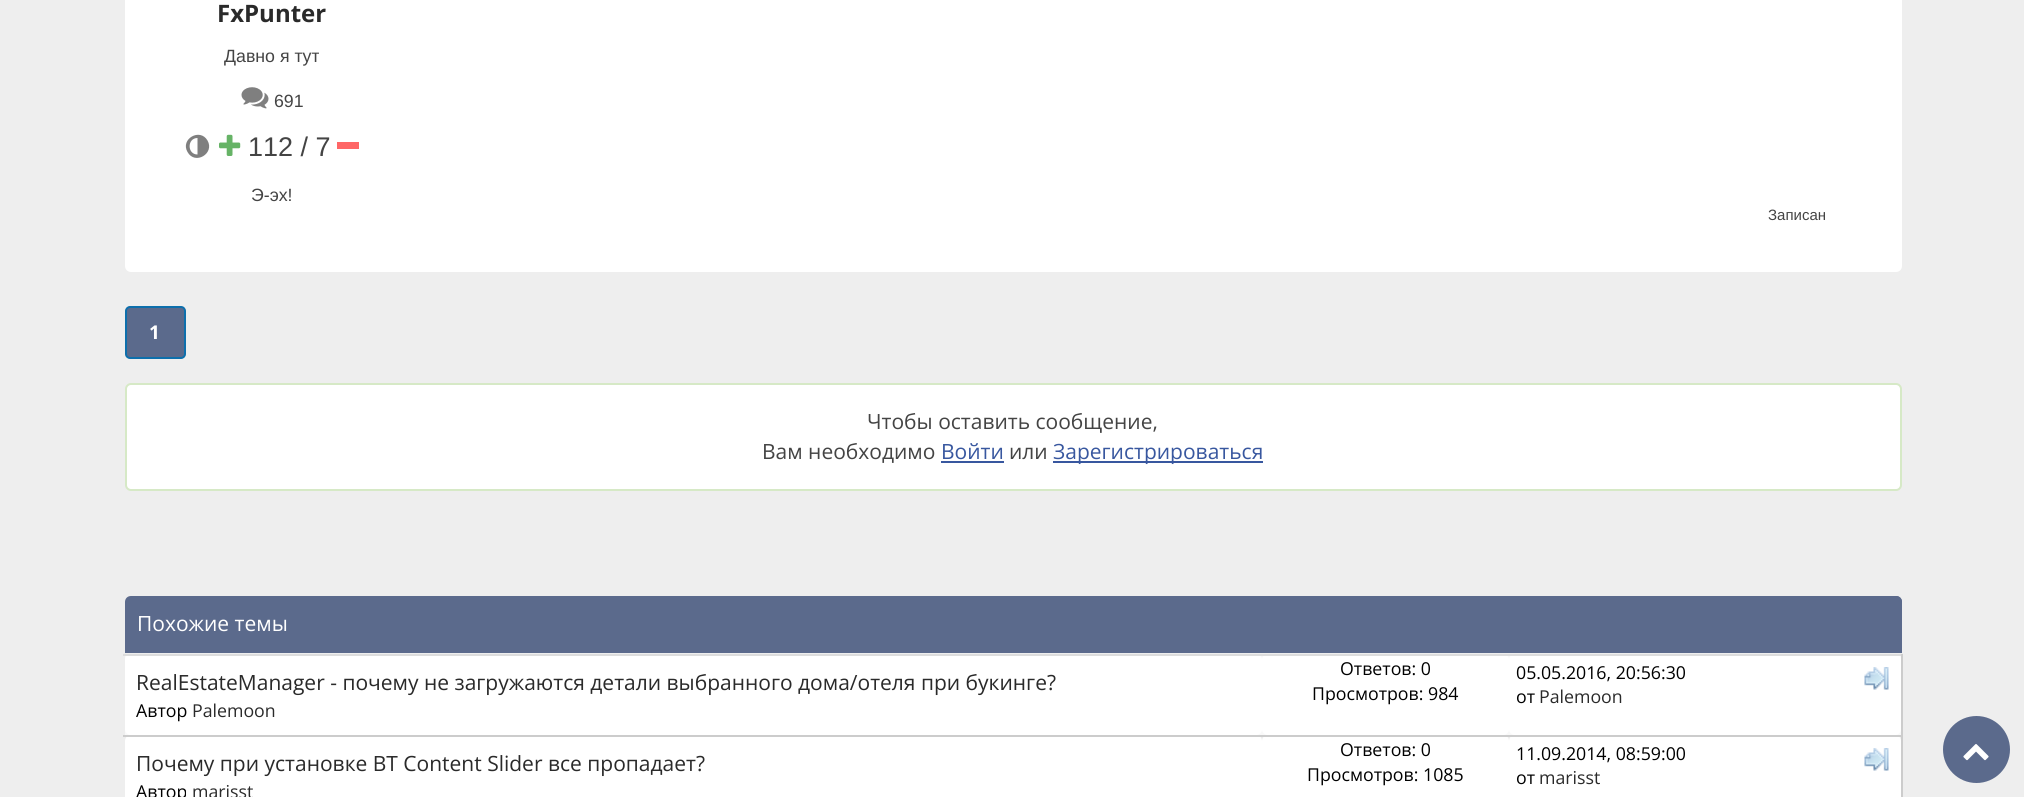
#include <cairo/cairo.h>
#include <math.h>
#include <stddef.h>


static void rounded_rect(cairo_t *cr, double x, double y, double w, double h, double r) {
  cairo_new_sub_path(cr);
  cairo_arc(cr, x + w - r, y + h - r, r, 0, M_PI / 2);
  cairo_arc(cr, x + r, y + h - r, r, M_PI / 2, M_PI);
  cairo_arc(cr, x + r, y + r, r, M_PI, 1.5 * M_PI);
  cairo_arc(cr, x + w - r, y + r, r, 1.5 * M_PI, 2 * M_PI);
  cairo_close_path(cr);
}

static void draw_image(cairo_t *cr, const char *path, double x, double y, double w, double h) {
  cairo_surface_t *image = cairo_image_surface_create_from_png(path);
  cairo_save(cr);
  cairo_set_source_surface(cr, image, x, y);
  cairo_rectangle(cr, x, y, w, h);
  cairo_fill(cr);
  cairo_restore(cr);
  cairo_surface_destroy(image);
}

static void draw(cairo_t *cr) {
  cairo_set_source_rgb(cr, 238 / 255.0, 238 / 255.0, 238 / 255.0);
  cairo_paint(cr);
  cairo_set_source_rgb(cr, 1, 1, 1);
  rounded_rect(cr, 125, -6, 1777, 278, 6);
  cairo_fill(cr);
  draw_image(cr, "images/1.png", 241, 87, 28, 22);
  cairo_set_source_rgb(cr, 127 / 255.0, 127 / 255.0, 127 / 255.0);
  cairo_new_path(cr);
  cairo_move_to(cr, 197.5, 154.5);
  cairo_line_to(cr, 197.5, 138);
  cairo_curve_to(cr, 187, 138, 187, 154.5, 197.5, 154.5);
  cairo_close_path(cr);
  cairo_move_to(cr, 207.5, 140.5);
  cairo_curve_to(cr, 215, 153.5, 195, 165.5, 187.5, 152);
  cairo_curve_to(cr, 180, 139, 200, 127.5, 207.5, 140.5);
  cairo_close_path(cr);
  cairo_fill(cr);
  draw_image(cr, "images/2.png", 219, 134, 22, 22);
  cairo_set_source_rgb(cr, 1, 102 / 255.0, 102 / 255.0);
  cairo_rectangle(cr, 337, 142, 22, 7);
  cairo_fill(cr);
  cairo_set_source_rgb(cr, 91 / 255.0, 106 / 255.0, 140 / 255.0);
  rounded_rect(cr, 126, 307, 59, 51, 4);
  cairo_fill_preserve(cr);
  cairo_set_source_rgb(cr, 13 / 255.0, 111 / 255.0, 172 / 255.0);
  cairo_stroke(cr);
  cairo_set_source_rgb(cr, 1, 1, 1);
  rounded_rect(cr, 126, 384, 1775, 106, 5);
  cairo_fill_preserve(cr);
  cairo_set_source_rgb(cr, 214 / 255.0, 233 / 255.0, 198 / 255.0);
  cairo_stroke(cr);
  cairo_set_source_rgb(cr, 56 / 255.0, 87 / 255.0, 159 / 255.0);
  cairo_rectangle(cr, 941, 461, 63, 2);
  cairo_fill(cr);
  cairo_rectangle(cr, 1053, 461, 210, 2);
  cairo_fill(cr);
  cairo_set_source_rgb(cr, 91 / 255.0, 106 / 255.0, 140 / 255.0);
  cairo_new_path(cr);
  cairo_move_to(cr, 131, 596);
  cairo_line_to(cr, 1896, 596);
  cairo_curve_to(cr, 1899.5, 596, 1902, 598.5, 1902, 602);
  cairo_line_to(cr, 1902, 653);
  cairo_line_to(cr, 125, 653);
  cairo_line_to(cr, 125, 602);
  cairo_curve_to(cr, 125, 598.5, 127.5, 596, 131, 596);
  cairo_close_path(cr);
  cairo_fill(cr);
  cairo_new_path(cr);
  cairo_move_to(cr, 138, 596);
  cairo_line_to(cr, 1896, 596);
  cairo_curve_to(cr, 1899.5, 596, 1902, 598.5, 1902, 602);
  cairo_line_to(cr, 1902, 653);
  cairo_line_to(cr, 138, 653);
  cairo_close_path(cr);
  cairo_fill(cr);
  cairo_set_source_rgb(cr, 249 / 255.0, 249 / 255.0, 249 / 255.0);
  cairo_rectangle(cr, 125, 656, 1776, 79);
  cairo_fill(cr);
  cairo_set_source_rgb(cr, 1, 1, 1);
  rounded_rect(cr, 125, 654, 1137, 81, 6);
  cairo_fill(cr);
  rounded_rect(cr, 1262, 654, 247, 81, 6);
  cairo_fill(cr);
  rounded_rect(cr, 1509, 654, 392, 81, 6);
  cairo_fill(cr);
  cairo_set_source_rgb(cr, 221 / 255.0, 221 / 255.0, 221 / 255.0);
  cairo_rectangle(cr, 123, 654, 1779, 2);
  cairo_fill(cr);
  cairo_set_source_rgb(cr, 204 / 255.0, 204 / 255.0, 204 / 255.0);
  cairo_rectangle(cr, 1901, 735, 2, 62);
  cairo_fill(cr);
  cairo_rectangle(cr, 1901, 654, 2, 83);
  cairo_fill(cr);
  cairo_set_source_rgb(cr, 1, 1, 1);
  rounded_rect(cr, 125, 735, 1137, 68, 6);
  cairo_fill(cr);
  rounded_rect(cr, 1262, 735, 247, 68, 6);
  cairo_fill(cr);
  rounded_rect(cr, 1509, 735, 392, 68, 6);
  cairo_fill(cr);
  cairo_set_source_rgb(cr, 204 / 255.0, 204 / 255.0, 204 / 255.0);
  cairo_rectangle(cr, 123, 735, 1779, 2);
  cairo_fill(cr);
  draw_image(cr, "images/3.png", 1864, 667, 25, 23);
  draw_image(cr, "images/3.png", 1864, 748, 25, 23);
  cairo_set_source_rgb(cr, 91 / 255.0, 106 / 255.0, 140 / 255.0);
  cairo_arc(cr, 1976.5, 749.5, 33.5, 0, 2 * M_PI);
  cairo_fill(cr);
  draw_image(cr, "images/4.png", 1963, 744, 26, 17);
  cairo_select_font_face(cr, "Open Sans", CAIRO_FONT_SLANT_NORMAL, CAIRO_FONT_WEIGHT_BOLD);
  cairo_set_font_size(cr, 24);
  cairo_set_source_rgb(cr, 42 / 255.0, 42 / 255.0, 42 / 255.0);
  cairo_move_to(cr, 217, 22);
  cairo_show_text(cr, "FxPunter");
  cairo_select_font_face(cr, "Liberation Sans", CAIRO_FONT_SLANT_NORMAL, CAIRO_FONT_WEIGHT_NORMAL);
  cairo_set_font_size(cr, 17.75);
  cairo_set_source_rgb(cr, 68 / 255.0, 68 / 255.0, 68 / 255.0);
  cairo_move_to(cr, 224, 62);
  cairo_show_text(cr, "Давно я тут");
  cairo_move_to(cr, 274, 107);
  cairo_show_text(cr, "691");
  cairo_set_font_size(cr, 27);
  cairo_move_to(cr, 248, 156);
  cairo_show_text(cr, "112 / 7");
  cairo_set_font_size(cr, 17.75);
  cairo_move_to(cr, 251, 201);
  cairo_show_text(cr, "Э-эх!");
  cairo_set_font_size(cr, 15);
  cairo_move_to(cr, 1768, 220);
  cairo_show_text(cr, "Записан");
  cairo_select_font_face(cr, "Open Sans", CAIRO_FONT_SLANT_NORMAL, CAIRO_FONT_WEIGHT_BOLD);
  cairo_set_font_size(cr, 19);
  cairo_set_source_rgb(cr, 1, 1, 1);
  cairo_move_to(cr, 149, 339);
  cairo_show_text(cr, "1");
  cairo_select_font_face(cr, "Open Sans", CAIRO_FONT_SLANT_NORMAL, CAIRO_FONT_WEIGHT_NORMAL);
  cairo_set_font_size(cr, 21);
  cairo_set_source_rgb(cr, 68 / 255.0, 68 / 255.0, 68 / 255.0);
  cairo_move_to(cr, 867, 429);
  cairo_show_text(cr, "Чтобы оставить сообщение,");
  cairo_move_to(cr, 762, 459);
  cairo_show_text(cr, "Вам необходимо");
  cairo_set_source_rgb(cr, 56 / 255.0, 87 / 255.0, 159 / 255.0);
  cairo_move_to(cr, 941, 459);
  cairo_show_text(cr, "Войти");
  cairo_set_source_rgb(cr, 68 / 255.0, 68 / 255.0, 68 / 255.0);
  cairo_move_to(cr, 1009, 459);
  cairo_show_text(cr, "или");
  cairo_set_source_rgb(cr, 56 / 255.0, 87 / 255.0, 159 / 255.0);
  cairo_move_to(cr, 1053, 459);
  cairo_show_text(cr, "Зарегистрироваться");
  cairo_set_source_rgb(cr, 1, 1, 1);
  cairo_move_to(cr, 137, 631);
  cairo_show_text(cr, "Похожие темы");
  cairo_set_source_rgb(cr, 42 / 255.0, 42 / 255.0, 42 / 255.0);
  cairo_move_to(cr, 136, 690);
  cairo_show_text(cr, "RealEstateManager - почему не загружаются детали выбранного дома/отеля при букинге?");
  cairo_set_font_size(cr, 17.75);
  cairo_set_source_rgb(cr, 0, 0, 0);
  cairo_move_to(cr, 136, 717);
  cairo_show_text(cr, "Автор");
  cairo_set_source_rgb(cr, 42 / 255.0, 42 / 255.0, 42 / 255.0);
  cairo_move_to(cr, 192, 717);
  cairo_show_text(cr, "Palemoon");
  cairo_set_source_rgb(cr, 0, 0, 0);
  cairo_move_to(cr, 1340, 675);
  cairo_show_text(cr, "Ответов: 0");
  cairo_move_to(cr, 1312, 700);
  cairo_show_text(cr, "Просмотров: 984");
  cairo_move_to(cr, 1516, 679);
  cairo_show_text(cr, "05.05.2016, 20:56:30");
  cairo_move_to(cr, 1516, 703);
  cairo_show_text(cr, "от");
  cairo_set_source_rgb(cr, 42 / 255.0, 42 / 255.0, 42 / 255.0);
  cairo_move_to(cr, 1539, 703);
  cairo_show_text(cr, "Palemoon");
  cairo_set_font_size(cr, 21);
  cairo_move_to(cr, 136, 771);
  cairo_show_text(cr, "Почему при установке BT Content Slider все пропадает?");
  cairo_set_font_size(cr, 17.75);
  cairo_set_source_rgb(cr, 0, 0, 0);
  cairo_move_to(cr, 136, 798);
  cairo_show_text(cr, "Автор");
  cairo_set_source_rgb(cr, 42 / 255.0, 42 / 255.0, 42 / 255.0);
  cairo_move_to(cr, 192, 798);
  cairo_show_text(cr, "marisst");
  cairo_set_source_rgb(cr, 0, 0, 0);
  cairo_move_to(cr, 1340, 756);
  cairo_show_text(cr, "Ответов: 0");
  cairo_move_to(cr, 1307, 781);
  cairo_show_text(cr, "Просмотров: 1085");
  cairo_move_to(cr, 1516, 760);
  cairo_show_text(cr, "11.09.2014, 08:59:00");
  cairo_move_to(cr, 1516, 784);
  cairo_show_text(cr, "от");
  cairo_set_source_rgb(cr, 42 / 255.0, 42 / 255.0, 42 / 255.0);
  cairo_move_to(cr, 1539, 784);
  cairo_show_text(cr, "marisst");
}

int main(void) {
  cairo_surface_t *surface = cairo_image_surface_create(CAIRO_FORMAT_RGB24, 2024, 797);
  cairo_t *cr = cairo_create(surface);
  cairo_font_options_t *options = cairo_font_options_create();
  cairo_font_options_set_hint_metrics(options, CAIRO_HINT_METRICS_OFF);
  cairo_font_options_set_hint_style(options, CAIRO_HINT_STYLE_NONE);
  cairo_set_font_options(cr, options);
  cairo_set_miter_limit(cr, 4);
  draw(cr);
  cairo_surface_write_to_png(surface, "out.png");
  cairo_font_options_destroy(options);
  cairo_destroy(cr);
  cairo_surface_destroy(surface);
  return 0;
}
